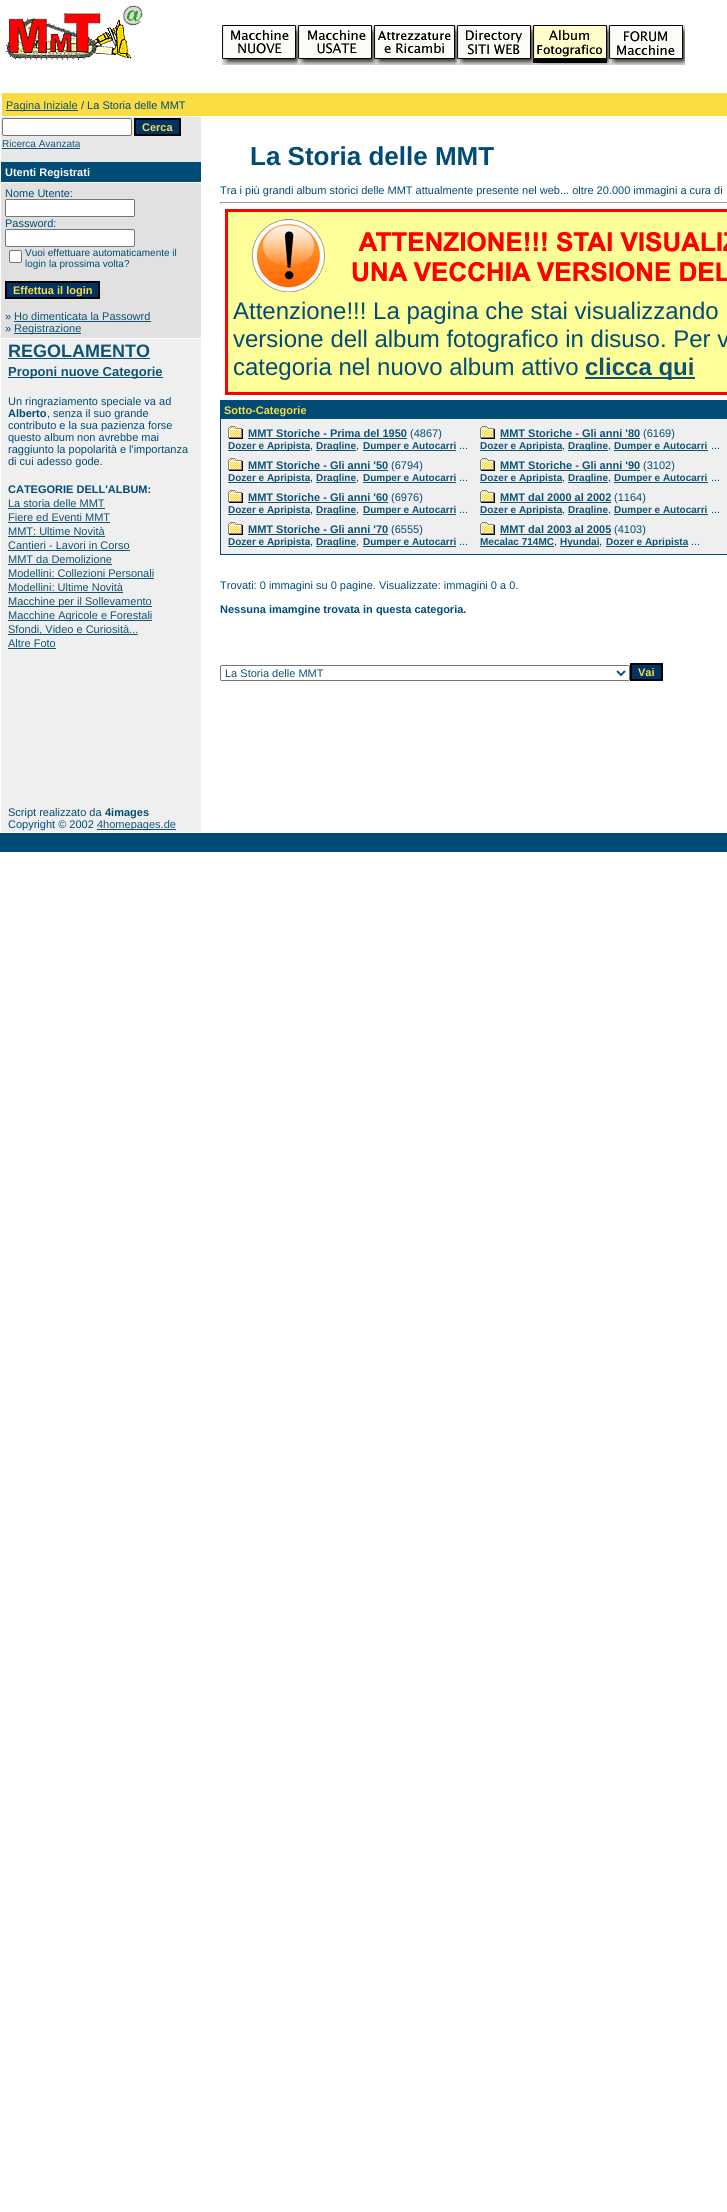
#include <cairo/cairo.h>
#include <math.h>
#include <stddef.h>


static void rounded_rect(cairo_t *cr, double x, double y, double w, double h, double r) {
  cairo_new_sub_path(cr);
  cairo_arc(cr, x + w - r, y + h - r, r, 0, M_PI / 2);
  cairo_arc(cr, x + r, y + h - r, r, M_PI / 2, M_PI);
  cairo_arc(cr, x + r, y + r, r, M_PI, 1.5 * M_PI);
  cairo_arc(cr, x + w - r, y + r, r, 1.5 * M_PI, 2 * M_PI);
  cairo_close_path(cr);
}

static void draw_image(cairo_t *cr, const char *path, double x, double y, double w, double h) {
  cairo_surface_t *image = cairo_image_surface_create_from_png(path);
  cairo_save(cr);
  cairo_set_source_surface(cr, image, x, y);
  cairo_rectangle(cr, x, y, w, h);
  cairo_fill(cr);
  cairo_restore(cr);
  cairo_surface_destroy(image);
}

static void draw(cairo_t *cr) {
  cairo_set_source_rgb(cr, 1, 1, 1);
  cairo_paint(cr);
  draw_image(cr, "images/1.png", 5, 5, 138, 55);
  draw_image(cr, "images/2.png", 222, 25, 76, 40);
  draw_image(cr, "images/3.png", 231, 30, 58, 24);
  draw_image(cr, "images/2.png", 298, 25, 76, 40);
  draw_image(cr, "images/4.png", 308, 30, 58, 24);
  draw_image(cr, "images/5.png", 374, 25, 83, 40);
  draw_image(cr, "images/6.png", 378, 31, 73, 22);
  draw_image(cr, "images/2.png", 457, 25, 76, 40);
  draw_image(cr, "images/7.png", 466, 30, 56, 25);
  draw_image(cr, "images/8.png", 533, 25, 76, 40);
  draw_image(cr, "images/9.png", 537, 30, 65, 27);
  draw_image(cr, "images/2.png", 609, 25, 76, 40);
  draw_image(cr, "images/10.png", 617, 31, 58, 24);
  cairo_set_source_rgb(cr, 252 / 255.0, 220 / 255.0, 67 / 255.0);
  cairo_rectangle(cr, 2, 93, 725, 23);
  cairo_fill(cr);
  cairo_set_source_rgb(cr, 15 / 255.0, 84 / 255.0, 117 / 255.0);
  cairo_rectangle(cr, 6, 110, 72, 1);
  cairo_fill(cr);
  cairo_set_source_rgb(cr, 239 / 255.0, 239 / 255.0, 239 / 255.0);
  cairo_rectangle(cr, 1, 339, 200, 493);
  cairo_fill(cr);
  cairo_set_source_rgb(cr, 232 / 255.0, 232 / 255.0, 232 / 255.0);
  cairo_rectangle(cr, 1, 117, 200, 45);
  cairo_fill(cr);
  cairo_set_source_rgb(cr, 1, 1, 1);
  rounded_rect(cr, 2.5, 118.5, 129, 17, 1.5);
  cairo_fill_preserve(cr);
  cairo_set_source_rgb(cr, 118 / 255.0, 118 / 255.0, 118 / 255.0);
  cairo_set_line_width(cr, 1);
  cairo_stroke(cr);
  cairo_set_source_rgb(cr, 0, 51 / 255.0, 102 / 255.0);
  cairo_rectangle(cr, 135, 119, 45, 16);
  cairo_fill_preserve(cr);
  cairo_set_source_rgb(cr, 0, 0, 0);
  cairo_set_line_width(cr, 2);
  cairo_stroke(cr);
  cairo_set_source_rgb(cr, 15 / 255.0, 84 / 255.0, 117 / 255.0);
  cairo_rectangle(cr, 2, 148, 78, 1);
  cairo_fill(cr);
  cairo_set_source_rgb(cr, 0, 76 / 255.0, 117 / 255.0);
  cairo_rectangle(cr, 1, 162, 200, 20);
  cairo_fill(cr);
  cairo_set_source_rgb(cr, 225 / 255.0, 225 / 255.0, 225 / 255.0);
  cairo_rectangle(cr, 1, 183, 200, 155);
  cairo_fill(cr);
  cairo_set_source_rgb(cr, 1, 1, 1);
  rounded_rect(cr, 5.5, 199.5, 129, 17, 1.5);
  cairo_fill_preserve(cr);
  cairo_set_source_rgb(cr, 118 / 255.0, 118 / 255.0, 118 / 255.0);
  cairo_set_line_width(cr, 1);
  cairo_stroke(cr);
  cairo_set_source_rgb(cr, 1, 1, 1);
  rounded_rect(cr, 5.5, 229.5, 129, 17, 1.5);
  cairo_fill_preserve(cr);
  cairo_set_source_rgb(cr, 118 / 255.0, 118 / 255.0, 118 / 255.0);
  cairo_stroke(cr);
  cairo_set_source_rgb(cr, 1, 1, 1);
  rounded_rect(cr, 9.5, 250.5, 12, 12, 1.5);
  cairo_fill_preserve(cr);
  cairo_set_source_rgb(cr, 118 / 255.0, 118 / 255.0, 118 / 255.0);
  cairo_stroke(cr);
  cairo_set_source_rgb(cr, 0, 51 / 255.0, 102 / 255.0);
  cairo_rectangle(cr, 6, 282, 93, 16);
  cairo_fill_preserve(cr);
  cairo_set_source_rgb(cr, 0, 0, 0);
  cairo_set_line_width(cr, 2);
  cairo_stroke(cr);
  cairo_set_source_rgb(cr, 15 / 255.0, 84 / 255.0, 117 / 255.0);
  cairo_rectangle(cr, 14, 321, 137, 1);
  cairo_fill(cr);
  cairo_rectangle(cr, 14, 333, 67, 1);
  cairo_fill(cr);
  cairo_rectangle(cr, 8, 358, 142, 1);
  cairo_fill(cr);
  cairo_rectangle(cr, 8, 377, 155, 1);
  cairo_fill(cr);
  cairo_rectangle(cr, 8, 508, 97, 1);
  cairo_fill(cr);
  cairo_rectangle(cr, 8, 522, 102, 1);
  cairo_fill(cr);
  cairo_rectangle(cr, 8, 536, 97, 1);
  cairo_fill(cr);
  cairo_rectangle(cr, 8, 550, 122, 1);
  cairo_fill(cr);
  cairo_rectangle(cr, 8, 564, 104, 1);
  cairo_fill(cr);
  cairo_rectangle(cr, 8, 578, 146, 1);
  cairo_fill(cr);
  cairo_rectangle(cr, 8, 592, 115, 1);
  cairo_fill(cr);
  cairo_rectangle(cr, 8, 606, 144, 1);
  cairo_fill(cr);
  cairo_rectangle(cr, 8, 620, 144, 1);
  cairo_fill(cr);
  cairo_rectangle(cr, 8, 634, 130, 1);
  cairo_fill(cr);
  cairo_rectangle(cr, 8, 648, 48, 1);
  cairo_fill(cr);
  cairo_rectangle(cr, 97, 829, 79, 1);
  cairo_fill(cr);
  cairo_set_source_rgb(cr, 159 / 255.0, 159 / 255.0, 159 / 255.0);
  cairo_rectangle(cr, 220, 202, 507, 1);
  cairo_fill(cr);
  cairo_rectangle(cr, 220, 202, 1, 2);
  cairo_fill(cr);
  cairo_set_source_rgb(cr, 1, 1, 153 / 255.0);
  cairo_rectangle(cr, 226.5, 210.5, 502, 183);
  cairo_fill_preserve(cr);
  cairo_set_source_rgb(cr, 1, 0, 0);
  cairo_set_line_width(cr, 3);
  cairo_stroke(cr);
  draw_image(cr, "images/11.png", 252, 219, 475, 73);
  cairo_set_source_rgb(cr, 15 / 255.0, 84 / 255.0, 117 / 255.0);
  cairo_rectangle(cr, 585, 377, 110, 2);
  cairo_fill(cr);
  cairo_set_source_rgb(cr, 0, 76 / 255.0, 117 / 255.0);
  cairo_rectangle(cr, 220, 400, 507, 155);
  cairo_fill(cr);
  cairo_set_source_rgb(cr, 239 / 255.0, 239 / 255.0, 239 / 255.0);
  cairo_rectangle(cr, 221, 419, 506, 135);
  cairo_fill(cr);
  draw_image(cr, "images/12.png", 228, 426, 15, 13);
  cairo_set_source_rgb(cr, 15 / 255.0, 84 / 255.0, 117 / 255.0);
  cairo_rectangle(cr, 248, 438, 159, 1);
  cairo_fill(cr);
  cairo_rectangle(cr, 228, 450, 82, 1);
  cairo_fill(cr);
  cairo_rectangle(cr, 316, 450, 40, 1);
  cairo_fill(cr);
  cairo_rectangle(cr, 363, 450, 93, 1);
  cairo_fill(cr);
  draw_image(cr, "images/12.png", 228, 458, 15, 13);
  cairo_rectangle(cr, 248, 470, 140, 1);
  cairo_fill(cr);
  cairo_rectangle(cr, 228, 482, 82, 1);
  cairo_fill(cr);
  cairo_rectangle(cr, 316, 482, 40, 1);
  cairo_fill(cr);
  cairo_rectangle(cr, 363, 482, 93, 1);
  cairo_fill(cr);
  draw_image(cr, "images/12.png", 228, 490, 15, 13);
  cairo_rectangle(cr, 248, 502, 140, 1);
  cairo_fill(cr);
  cairo_rectangle(cr, 228, 514, 82, 1);
  cairo_fill(cr);
  cairo_rectangle(cr, 316, 514, 40, 1);
  cairo_fill(cr);
  cairo_rectangle(cr, 363, 514, 93, 1);
  cairo_fill(cr);
  draw_image(cr, "images/12.png", 228, 522, 15, 13);
  cairo_rectangle(cr, 248, 534, 140, 1);
  cairo_fill(cr);
  cairo_rectangle(cr, 228, 546, 82, 1);
  cairo_fill(cr);
  cairo_rectangle(cr, 316, 546, 40, 1);
  cairo_fill(cr);
  cairo_rectangle(cr, 363, 546, 93, 1);
  cairo_fill(cr);
  draw_image(cr, "images/12.png", 480, 426, 15, 13);
  cairo_rectangle(cr, 500, 438, 140, 1);
  cairo_fill(cr);
  cairo_rectangle(cr, 480, 450, 82, 1);
  cairo_fill(cr);
  cairo_rectangle(cr, 568, 450, 40, 1);
  cairo_fill(cr);
  cairo_rectangle(cr, 614, 450, 94, 1);
  cairo_fill(cr);
  draw_image(cr, "images/12.png", 480, 458, 15, 13);
  cairo_rectangle(cr, 500, 470, 140, 1);
  cairo_fill(cr);
  cairo_rectangle(cr, 480, 482, 82, 1);
  cairo_fill(cr);
  cairo_rectangle(cr, 568, 482, 40, 1);
  cairo_fill(cr);
  cairo_rectangle(cr, 614, 482, 94, 1);
  cairo_fill(cr);
  draw_image(cr, "images/12.png", 480, 490, 15, 13);
  cairo_rectangle(cr, 500, 502, 111, 1);
  cairo_fill(cr);
  cairo_rectangle(cr, 480, 514, 82, 1);
  cairo_fill(cr);
  cairo_rectangle(cr, 568, 514, 40, 1);
  cairo_fill(cr);
  cairo_rectangle(cr, 614, 514, 94, 1);
  cairo_fill(cr);
  draw_image(cr, "images/12.png", 480, 522, 15, 13);
  cairo_rectangle(cr, 500, 534, 111, 1);
  cairo_fill(cr);
  cairo_rectangle(cr, 480, 546, 74, 1);
  cairo_fill(cr);
  cairo_rectangle(cr, 560, 546, 39, 1);
  cairo_fill(cr);
  cairo_rectangle(cr, 606, 546, 82, 1);
  cairo_fill(cr);
  rounded_rect(cr, 220.5, 665.5, 409, 15, 1.5);
  cairo_set_source_rgb(cr, 118 / 255.0, 118 / 255.0, 118 / 255.0);
  cairo_set_line_width(cr, 1);
  cairo_stroke(cr);
  cairo_new_path(cr);
  cairo_move_to(cr, 617, 671);
  cairo_line_to(cr, 621, 675);
  cairo_line_to(cr, 625, 671);
  cairo_set_source_rgb(cr, 15 / 255.0, 84 / 255.0, 117 / 255.0);
  cairo_set_line_width(cr, 2);
  cairo_stroke(cr);
  cairo_set_source_rgb(cr, 0, 51 / 255.0, 102 / 255.0);
  cairo_rectangle(cr, 631, 664, 31, 16);
  cairo_fill_preserve(cr);
  cairo_set_source_rgb(cr, 0, 0, 0);
  cairo_stroke(cr);
  cairo_set_source_rgb(cr, 0, 76 / 255.0, 117 / 255.0);
  cairo_rectangle(cr, 0, 833, 727, 19);
  cairo_fill(cr);
  cairo_select_font_face(cr, "Liberation Sans", CAIRO_FONT_SLANT_NORMAL, CAIRO_FONT_WEIGHT_NORMAL);
  cairo_set_font_size(cr, 11);
  cairo_set_source_rgb(cr, 15 / 255.0, 84 / 255.0, 117 / 255.0);
  cairo_move_to(cr, 6, 109);
  cairo_show_text(cr, "Pagina Iniziale");
  cairo_set_source_rgb(cr, 0, 76 / 255.0, 117 / 255.0);
  cairo_move_to(cr, 81, 109);
  cairo_show_text(cr, "/ La Storia delle MMT");
  cairo_select_font_face(cr, "Liberation Sans", CAIRO_FONT_SLANT_NORMAL, CAIRO_FONT_WEIGHT_BOLD);
  cairo_set_source_rgb(cr, 252 / 255.0, 220 / 255.0, 67 / 255.0);
  cairo_move_to(cr, 142, 131);
  cairo_show_text(cr, "Cerca");
  cairo_select_font_face(cr, "Liberation Sans", CAIRO_FONT_SLANT_NORMAL, CAIRO_FONT_WEIGHT_NORMAL);
  cairo_set_font_size(cr, 10);
  cairo_set_source_rgb(cr, 15 / 255.0, 84 / 255.0, 117 / 255.0);
  cairo_move_to(cr, 2, 147);
  cairo_show_text(cr, "Ricerca Avanzata");
  cairo_select_font_face(cr, "Liberation Sans", CAIRO_FONT_SLANT_NORMAL, CAIRO_FONT_WEIGHT_BOLD);
  cairo_set_font_size(cr, 11);
  cairo_set_source_rgb(cr, 1, 1, 1);
  cairo_move_to(cr, 5, 176);
  cairo_show_text(cr, "Utenti Registrati");
  cairo_select_font_face(cr, "Liberation Sans", CAIRO_FONT_SLANT_NORMAL, CAIRO_FONT_WEIGHT_NORMAL);
  cairo_set_source_rgb(cr, 0, 76 / 255.0, 117 / 255.0);
  cairo_move_to(cr, 5, 197);
  cairo_show_text(cr, "Nome Utente:");
  cairo_move_to(cr, 5, 227);
  cairo_show_text(cr, "Password:");
  cairo_set_font_size(cr, 10);
  cairo_move_to(cr, 25, 256);
  cairo_show_text(cr, "Vuoi effettuare automaticamente il");
  cairo_move_to(cr, 25, 267);
  cairo_show_text(cr, "login la prossima volta?");
  cairo_select_font_face(cr, "Liberation Sans", CAIRO_FONT_SLANT_NORMAL, CAIRO_FONT_WEIGHT_BOLD);
  cairo_set_font_size(cr, 11);
  cairo_set_source_rgb(cr, 252 / 255.0, 220 / 255.0, 67 / 255.0);
  cairo_move_to(cr, 13, 294);
  cairo_show_text(cr, "Effettua il login");
  cairo_select_font_face(cr, "Liberation Sans", CAIRO_FONT_SLANT_NORMAL, CAIRO_FONT_WEIGHT_NORMAL);
  cairo_set_source_rgb(cr, 0, 76 / 255.0, 117 / 255.0);
  cairo_move_to(cr, 5, 320);
  cairo_show_text(cr, "»");
  cairo_set_source_rgb(cr, 15 / 255.0, 84 / 255.0, 117 / 255.0);
  cairo_move_to(cr, 14, 320);
  cairo_show_text(cr, "Ho dimenticata la Passowrd");
  cairo_set_source_rgb(cr, 0, 76 / 255.0, 117 / 255.0);
  cairo_move_to(cr, 5, 332);
  cairo_show_text(cr, "»");
  cairo_set_source_rgb(cr, 15 / 255.0, 84 / 255.0, 117 / 255.0);
  cairo_move_to(cr, 14, 332);
  cairo_show_text(cr, "Registrazione");
  cairo_select_font_face(cr, "Liberation Sans", CAIRO_FONT_SLANT_NORMAL, CAIRO_FONT_WEIGHT_BOLD);
  cairo_set_font_size(cr, 18);
  cairo_move_to(cr, 8, 357);
  cairo_show_text(cr, "REGOLAMENTO");
  cairo_set_font_size(cr, 13);
  cairo_move_to(cr, 8, 376);
  cairo_show_text(cr, "Proponi nuove Categorie");
  cairo_select_font_face(cr, "Liberation Sans", CAIRO_FONT_SLANT_NORMAL, CAIRO_FONT_WEIGHT_NORMAL);
  cairo_set_font_size(cr, 11);
  cairo_set_source_rgb(cr, 0, 76 / 255.0, 117 / 255.0);
  cairo_move_to(cr, 8, 405);
  cairo_show_text(cr, "Un ringraziamento speciale va ad");
  cairo_select_font_face(cr, "Liberation Sans", CAIRO_FONT_SLANT_NORMAL, CAIRO_FONT_WEIGHT_BOLD);
  cairo_move_to(cr, 8, 417);
  cairo_show_text(cr, "Alberto");
  cairo_select_font_face(cr, "Liberation Sans", CAIRO_FONT_SLANT_NORMAL, CAIRO_FONT_WEIGHT_NORMAL);
  cairo_move_to(cr, 47, 417);
  cairo_show_text(cr, ", senza il suo grande");
  cairo_move_to(cr, 8, 429);
  cairo_show_text(cr, "contributo e la sua pazienza forse");
  cairo_move_to(cr, 8, 441);
  cairo_show_text(cr, "questo album non avrebbe mai");
  cairo_move_to(cr, 8, 453);
  cairo_show_text(cr, "raggiunto la popolarità e l'importanza");
  cairo_move_to(cr, 8, 465);
  cairo_show_text(cr, "di cui adesso gode.");
  cairo_select_font_face(cr, "Liberation Sans", CAIRO_FONT_SLANT_NORMAL, CAIRO_FONT_WEIGHT_BOLD);
  cairo_move_to(cr, 8, 493);
  cairo_show_text(cr, "CATEGORIE DELL'ALBUM:");
  cairo_select_font_face(cr, "Liberation Sans", CAIRO_FONT_SLANT_NORMAL, CAIRO_FONT_WEIGHT_NORMAL);
  cairo_set_source_rgb(cr, 15 / 255.0, 84 / 255.0, 117 / 255.0);
  cairo_move_to(cr, 8, 507);
  cairo_show_text(cr, "La storia delle MMT");
  cairo_move_to(cr, 8, 521);
  cairo_show_text(cr, "Fiere ed Eventi MMT");
  cairo_move_to(cr, 8, 535);
  cairo_show_text(cr, "MMT: Ultime Novità");
  cairo_move_to(cr, 8, 549);
  cairo_show_text(cr, "Cantieri - Lavori in Corso");
  cairo_move_to(cr, 8, 563);
  cairo_show_text(cr, "MMT da Demolizione");
  cairo_move_to(cr, 8, 577);
  cairo_show_text(cr, "Modellini: Collezioni Personali");
  cairo_move_to(cr, 8, 591);
  cairo_show_text(cr, "Modellini: Ultime Novità");
  cairo_move_to(cr, 8, 605);
  cairo_show_text(cr, "Macchine per il Sollevamento");
  cairo_move_to(cr, 8, 619);
  cairo_show_text(cr, "Macchine Agricole e Forestali");
  cairo_move_to(cr, 8, 633);
  cairo_show_text(cr, "Sfondi, Video e Curiosità...");
  cairo_move_to(cr, 8, 647);
  cairo_show_text(cr, "Altre Foto");
  cairo_set_source_rgb(cr, 0, 76 / 255.0, 117 / 255.0);
  cairo_move_to(cr, 8, 816);
  cairo_show_text(cr, "Script realizzato da");
  cairo_select_font_face(cr, "Liberation Sans", CAIRO_FONT_SLANT_NORMAL, CAIRO_FONT_WEIGHT_BOLD);
  cairo_move_to(cr, 105, 816);
  cairo_show_text(cr, "4images");
  cairo_select_font_face(cr, "Liberation Sans", CAIRO_FONT_SLANT_NORMAL, CAIRO_FONT_WEIGHT_NORMAL);
  cairo_move_to(cr, 8, 828);
  cairo_show_text(cr, "Copyright © 2002");
  cairo_set_source_rgb(cr, 15 / 255.0, 84 / 255.0, 117 / 255.0);
  cairo_move_to(cr, 97, 828);
  cairo_show_text(cr, "4homepages.de");
  cairo_select_font_face(cr, "Liberation Sans", CAIRO_FONT_SLANT_NORMAL, CAIRO_FONT_WEIGHT_BOLD);
  cairo_set_font_size(cr, 26);
  cairo_set_source_rgb(cr, 0, 76 / 255.0, 117 / 255.0);
  cairo_move_to(cr, 250, 165);
  cairo_show_text(cr, "La Storia delle MMT");
  cairo_select_font_face(cr, "Liberation Sans", CAIRO_FONT_SLANT_NORMAL, CAIRO_FONT_WEIGHT_NORMAL);
  cairo_set_font_size(cr, 11);
  cairo_move_to(cr, 220, 194);
  cairo_show_text(cr, "Tra i più grandi album storici delle MMT attualmente presente nel web... oltre 20.000 immagini a cura di");
  cairo_set_font_size(cr, 24);
  cairo_move_to(cr, 233, 319);
  cairo_show_text(cr, "Attenzione!!! La pagina che stai visualizzando");
  cairo_move_to(cr, 233, 347);
  cairo_show_text(cr, "versione dell album fotografico in disuso. Per v");
  cairo_move_to(cr, 233, 375);
  cairo_show_text(cr, "categoria nel nuovo album attivo");
  cairo_select_font_face(cr, "Liberation Sans", CAIRO_FONT_SLANT_NORMAL, CAIRO_FONT_WEIGHT_BOLD);
  cairo_set_source_rgb(cr, 15 / 255.0, 84 / 255.0, 117 / 255.0);
  cairo_move_to(cr, 585, 375);
  cairo_show_text(cr, "clicca qui");
  cairo_set_font_size(cr, 11);
  cairo_set_source_rgb(cr, 252 / 255.0, 220 / 255.0, 67 / 255.0);
  cairo_move_to(cr, 224, 414);
  cairo_show_text(cr, "Sotto-Categorie");
  cairo_set_source_rgb(cr, 15 / 255.0, 84 / 255.0, 117 / 255.0);
  cairo_move_to(cr, 248, 437);
  cairo_show_text(cr, "MMT Storiche - Prima del 1950");
  cairo_select_font_face(cr, "Liberation Sans", CAIRO_FONT_SLANT_NORMAL, CAIRO_FONT_WEIGHT_NORMAL);
  cairo_set_source_rgb(cr, 0, 76 / 255.0, 117 / 255.0);
  cairo_move_to(cr, 410, 437);
  cairo_show_text(cr, "(4867)");
  cairo_select_font_face(cr, "Liberation Sans", CAIRO_FONT_SLANT_NORMAL, CAIRO_FONT_WEIGHT_BOLD);
  cairo_set_font_size(cr, 10);
  cairo_set_source_rgb(cr, 15 / 255.0, 84 / 255.0, 117 / 255.0);
  cairo_move_to(cr, 228, 449);
  cairo_show_text(cr, "Dozer e Apripista");
  cairo_select_font_face(cr, "Liberation Sans", CAIRO_FONT_SLANT_NORMAL, CAIRO_FONT_WEIGHT_NORMAL);
  cairo_set_font_size(cr, 11);
  cairo_set_source_rgb(cr, 0, 76 / 255.0, 117 / 255.0);
  cairo_move_to(cr, 310, 449);
  cairo_show_text(cr, ",");
  cairo_select_font_face(cr, "Liberation Sans", CAIRO_FONT_SLANT_NORMAL, CAIRO_FONT_WEIGHT_BOLD);
  cairo_set_font_size(cr, 10);
  cairo_set_source_rgb(cr, 15 / 255.0, 84 / 255.0, 117 / 255.0);
  cairo_move_to(cr, 316, 449);
  cairo_show_text(cr, "Dragline");
  cairo_select_font_face(cr, "Liberation Sans", CAIRO_FONT_SLANT_NORMAL, CAIRO_FONT_WEIGHT_NORMAL);
  cairo_set_font_size(cr, 11);
  cairo_set_source_rgb(cr, 0, 76 / 255.0, 117 / 255.0);
  cairo_move_to(cr, 356, 449);
  cairo_show_text(cr, ",");
  cairo_select_font_face(cr, "Liberation Sans", CAIRO_FONT_SLANT_NORMAL, CAIRO_FONT_WEIGHT_BOLD);
  cairo_set_font_size(cr, 10);
  cairo_set_source_rgb(cr, 15 / 255.0, 84 / 255.0, 117 / 255.0);
  cairo_move_to(cr, 363, 449);
  cairo_show_text(cr, "Dumper e Autocarri");
  cairo_select_font_face(cr, "Liberation Sans", CAIRO_FONT_SLANT_NORMAL, CAIRO_FONT_WEIGHT_NORMAL);
  cairo_set_font_size(cr, 11);
  cairo_set_source_rgb(cr, 0, 76 / 255.0, 117 / 255.0);
  cairo_move_to(cr, 459, 449);
  cairo_show_text(cr, "...");
  cairo_select_font_face(cr, "Liberation Sans", CAIRO_FONT_SLANT_NORMAL, CAIRO_FONT_WEIGHT_BOLD);
  cairo_set_source_rgb(cr, 15 / 255.0, 84 / 255.0, 117 / 255.0);
  cairo_move_to(cr, 248, 469);
  cairo_show_text(cr, "MMT Storiche - Gli anni '50");
  cairo_select_font_face(cr, "Liberation Sans", CAIRO_FONT_SLANT_NORMAL, CAIRO_FONT_WEIGHT_NORMAL);
  cairo_set_source_rgb(cr, 0, 76 / 255.0, 117 / 255.0);
  cairo_move_to(cr, 391, 469);
  cairo_show_text(cr, "(6794)");
  cairo_select_font_face(cr, "Liberation Sans", CAIRO_FONT_SLANT_NORMAL, CAIRO_FONT_WEIGHT_BOLD);
  cairo_set_font_size(cr, 10);
  cairo_set_source_rgb(cr, 15 / 255.0, 84 / 255.0, 117 / 255.0);
  cairo_move_to(cr, 228, 481);
  cairo_show_text(cr, "Dozer e Apripista");
  cairo_select_font_face(cr, "Liberation Sans", CAIRO_FONT_SLANT_NORMAL, CAIRO_FONT_WEIGHT_NORMAL);
  cairo_set_font_size(cr, 11);
  cairo_set_source_rgb(cr, 0, 76 / 255.0, 117 / 255.0);
  cairo_move_to(cr, 310, 481);
  cairo_show_text(cr, ",");
  cairo_select_font_face(cr, "Liberation Sans", CAIRO_FONT_SLANT_NORMAL, CAIRO_FONT_WEIGHT_BOLD);
  cairo_set_font_size(cr, 10);
  cairo_set_source_rgb(cr, 15 / 255.0, 84 / 255.0, 117 / 255.0);
  cairo_move_to(cr, 316, 481);
  cairo_show_text(cr, "Dragline");
  cairo_select_font_face(cr, "Liberation Sans", CAIRO_FONT_SLANT_NORMAL, CAIRO_FONT_WEIGHT_NORMAL);
  cairo_set_font_size(cr, 11);
  cairo_set_source_rgb(cr, 0, 76 / 255.0, 117 / 255.0);
  cairo_move_to(cr, 356, 481);
  cairo_show_text(cr, ",");
  cairo_select_font_face(cr, "Liberation Sans", CAIRO_FONT_SLANT_NORMAL, CAIRO_FONT_WEIGHT_BOLD);
  cairo_set_font_size(cr, 10);
  cairo_set_source_rgb(cr, 15 / 255.0, 84 / 255.0, 117 / 255.0);
  cairo_move_to(cr, 363, 481);
  cairo_show_text(cr, "Dumper e Autocarri");
  cairo_select_font_face(cr, "Liberation Sans", CAIRO_FONT_SLANT_NORMAL, CAIRO_FONT_WEIGHT_NORMAL);
  cairo_set_font_size(cr, 11);
  cairo_set_source_rgb(cr, 0, 76 / 255.0, 117 / 255.0);
  cairo_move_to(cr, 459, 481);
  cairo_show_text(cr, "...");
  cairo_select_font_face(cr, "Liberation Sans", CAIRO_FONT_SLANT_NORMAL, CAIRO_FONT_WEIGHT_BOLD);
  cairo_set_source_rgb(cr, 15 / 255.0, 84 / 255.0, 117 / 255.0);
  cairo_move_to(cr, 248, 501);
  cairo_show_text(cr, "MMT Storiche - Gli anni '60");
  cairo_select_font_face(cr, "Liberation Sans", CAIRO_FONT_SLANT_NORMAL, CAIRO_FONT_WEIGHT_NORMAL);
  cairo_set_source_rgb(cr, 0, 76 / 255.0, 117 / 255.0);
  cairo_move_to(cr, 391, 501);
  cairo_show_text(cr, "(6976)");
  cairo_select_font_face(cr, "Liberation Sans", CAIRO_FONT_SLANT_NORMAL, CAIRO_FONT_WEIGHT_BOLD);
  cairo_set_font_size(cr, 10);
  cairo_set_source_rgb(cr, 15 / 255.0, 84 / 255.0, 117 / 255.0);
  cairo_move_to(cr, 228, 513);
  cairo_show_text(cr, "Dozer e Apripista");
  cairo_select_font_face(cr, "Liberation Sans", CAIRO_FONT_SLANT_NORMAL, CAIRO_FONT_WEIGHT_NORMAL);
  cairo_set_font_size(cr, 11);
  cairo_set_source_rgb(cr, 0, 76 / 255.0, 117 / 255.0);
  cairo_move_to(cr, 310, 513);
  cairo_show_text(cr, ",");
  cairo_select_font_face(cr, "Liberation Sans", CAIRO_FONT_SLANT_NORMAL, CAIRO_FONT_WEIGHT_BOLD);
  cairo_set_font_size(cr, 10);
  cairo_set_source_rgb(cr, 15 / 255.0, 84 / 255.0, 117 / 255.0);
  cairo_move_to(cr, 316, 513);
  cairo_show_text(cr, "Dragline");
  cairo_select_font_face(cr, "Liberation Sans", CAIRO_FONT_SLANT_NORMAL, CAIRO_FONT_WEIGHT_NORMAL);
  cairo_set_font_size(cr, 11);
  cairo_set_source_rgb(cr, 0, 76 / 255.0, 117 / 255.0);
  cairo_move_to(cr, 356, 513);
  cairo_show_text(cr, ",");
  cairo_select_font_face(cr, "Liberation Sans", CAIRO_FONT_SLANT_NORMAL, CAIRO_FONT_WEIGHT_BOLD);
  cairo_set_font_size(cr, 10);
  cairo_set_source_rgb(cr, 15 / 255.0, 84 / 255.0, 117 / 255.0);
  cairo_move_to(cr, 363, 513);
  cairo_show_text(cr, "Dumper e Autocarri");
  cairo_select_font_face(cr, "Liberation Sans", CAIRO_FONT_SLANT_NORMAL, CAIRO_FONT_WEIGHT_NORMAL);
  cairo_set_font_size(cr, 11);
  cairo_set_source_rgb(cr, 0, 76 / 255.0, 117 / 255.0);
  cairo_move_to(cr, 459, 513);
  cairo_show_text(cr, "...");
  cairo_select_font_face(cr, "Liberation Sans", CAIRO_FONT_SLANT_NORMAL, CAIRO_FONT_WEIGHT_BOLD);
  cairo_set_source_rgb(cr, 15 / 255.0, 84 / 255.0, 117 / 255.0);
  cairo_move_to(cr, 248, 533);
  cairo_show_text(cr, "MMT Storiche - Gli anni '70");
  cairo_select_font_face(cr, "Liberation Sans", CAIRO_FONT_SLANT_NORMAL, CAIRO_FONT_WEIGHT_NORMAL);
  cairo_set_source_rgb(cr, 0, 76 / 255.0, 117 / 255.0);
  cairo_move_to(cr, 391, 533);
  cairo_show_text(cr, "(6555)");
  cairo_select_font_face(cr, "Liberation Sans", CAIRO_FONT_SLANT_NORMAL, CAIRO_FONT_WEIGHT_BOLD);
  cairo_set_font_size(cr, 10);
  cairo_set_source_rgb(cr, 15 / 255.0, 84 / 255.0, 117 / 255.0);
  cairo_move_to(cr, 228, 545);
  cairo_show_text(cr, "Dozer e Apripista");
  cairo_select_font_face(cr, "Liberation Sans", CAIRO_FONT_SLANT_NORMAL, CAIRO_FONT_WEIGHT_NORMAL);
  cairo_set_font_size(cr, 11);
  cairo_set_source_rgb(cr, 0, 76 / 255.0, 117 / 255.0);
  cairo_move_to(cr, 310, 545);
  cairo_show_text(cr, ",");
  cairo_select_font_face(cr, "Liberation Sans", CAIRO_FONT_SLANT_NORMAL, CAIRO_FONT_WEIGHT_BOLD);
  cairo_set_font_size(cr, 10);
  cairo_set_source_rgb(cr, 15 / 255.0, 84 / 255.0, 117 / 255.0);
  cairo_move_to(cr, 316, 545);
  cairo_show_text(cr, "Dragline");
  cairo_select_font_face(cr, "Liberation Sans", CAIRO_FONT_SLANT_NORMAL, CAIRO_FONT_WEIGHT_NORMAL);
  cairo_set_font_size(cr, 11);
  cairo_set_source_rgb(cr, 0, 76 / 255.0, 117 / 255.0);
  cairo_move_to(cr, 356, 545);
  cairo_show_text(cr, ",");
  cairo_select_font_face(cr, "Liberation Sans", CAIRO_FONT_SLANT_NORMAL, CAIRO_FONT_WEIGHT_BOLD);
  cairo_set_font_size(cr, 10);
  cairo_set_source_rgb(cr, 15 / 255.0, 84 / 255.0, 117 / 255.0);
  cairo_move_to(cr, 363, 545);
  cairo_show_text(cr, "Dumper e Autocarri");
  cairo_select_font_face(cr, "Liberation Sans", CAIRO_FONT_SLANT_NORMAL, CAIRO_FONT_WEIGHT_NORMAL);
  cairo_set_font_size(cr, 11);
  cairo_set_source_rgb(cr, 0, 76 / 255.0, 117 / 255.0);
  cairo_move_to(cr, 459, 545);
  cairo_show_text(cr, "...");
  cairo_select_font_face(cr, "Liberation Sans", CAIRO_FONT_SLANT_NORMAL, CAIRO_FONT_WEIGHT_BOLD);
  cairo_set_source_rgb(cr, 15 / 255.0, 84 / 255.0, 117 / 255.0);
  cairo_move_to(cr, 500, 437);
  cairo_show_text(cr, "MMT Storiche - Gli anni '80");
  cairo_select_font_face(cr, "Liberation Sans", CAIRO_FONT_SLANT_NORMAL, CAIRO_FONT_WEIGHT_NORMAL);
  cairo_set_source_rgb(cr, 0, 76 / 255.0, 117 / 255.0);
  cairo_move_to(cr, 643, 437);
  cairo_show_text(cr, "(6169)");
  cairo_select_font_face(cr, "Liberation Sans", CAIRO_FONT_SLANT_NORMAL, CAIRO_FONT_WEIGHT_BOLD);
  cairo_set_font_size(cr, 10);
  cairo_set_source_rgb(cr, 15 / 255.0, 84 / 255.0, 117 / 255.0);
  cairo_move_to(cr, 480, 449);
  cairo_show_text(cr, "Dozer e Apripista");
  cairo_select_font_face(cr, "Liberation Sans", CAIRO_FONT_SLANT_NORMAL, CAIRO_FONT_WEIGHT_NORMAL);
  cairo_set_font_size(cr, 11);
  cairo_set_source_rgb(cr, 0, 76 / 255.0, 117 / 255.0);
  cairo_move_to(cr, 562, 449);
  cairo_show_text(cr, ",");
  cairo_select_font_face(cr, "Liberation Sans", CAIRO_FONT_SLANT_NORMAL, CAIRO_FONT_WEIGHT_BOLD);
  cairo_set_font_size(cr, 10);
  cairo_set_source_rgb(cr, 15 / 255.0, 84 / 255.0, 117 / 255.0);
  cairo_move_to(cr, 568, 449);
  cairo_show_text(cr, "Dragline");
  cairo_select_font_face(cr, "Liberation Sans", CAIRO_FONT_SLANT_NORMAL, CAIRO_FONT_WEIGHT_NORMAL);
  cairo_set_font_size(cr, 11);
  cairo_set_source_rgb(cr, 0, 76 / 255.0, 117 / 255.0);
  cairo_move_to(cr, 608, 449);
  cairo_show_text(cr, ",");
  cairo_select_font_face(cr, "Liberation Sans", CAIRO_FONT_SLANT_NORMAL, CAIRO_FONT_WEIGHT_BOLD);
  cairo_set_font_size(cr, 10);
  cairo_set_source_rgb(cr, 15 / 255.0, 84 / 255.0, 117 / 255.0);
  cairo_move_to(cr, 614, 449);
  cairo_show_text(cr, "Dumper e Autocarri");
  cairo_select_font_face(cr, "Liberation Sans", CAIRO_FONT_SLANT_NORMAL, CAIRO_FONT_WEIGHT_NORMAL);
  cairo_set_font_size(cr, 11);
  cairo_set_source_rgb(cr, 0, 76 / 255.0, 117 / 255.0);
  cairo_move_to(cr, 711, 449);
  cairo_show_text(cr, "...");
  cairo_select_font_face(cr, "Liberation Sans", CAIRO_FONT_SLANT_NORMAL, CAIRO_FONT_WEIGHT_BOLD);
  cairo_set_source_rgb(cr, 15 / 255.0, 84 / 255.0, 117 / 255.0);
  cairo_move_to(cr, 500, 469);
  cairo_show_text(cr, "MMT Storiche - Gli anni '90");
  cairo_select_font_face(cr, "Liberation Sans", CAIRO_FONT_SLANT_NORMAL, CAIRO_FONT_WEIGHT_NORMAL);
  cairo_set_source_rgb(cr, 0, 76 / 255.0, 117 / 255.0);
  cairo_move_to(cr, 643, 469);
  cairo_show_text(cr, "(3102)");
  cairo_select_font_face(cr, "Liberation Sans", CAIRO_FONT_SLANT_NORMAL, CAIRO_FONT_WEIGHT_BOLD);
  cairo_set_font_size(cr, 10);
  cairo_set_source_rgb(cr, 15 / 255.0, 84 / 255.0, 117 / 255.0);
  cairo_move_to(cr, 480, 481);
  cairo_show_text(cr, "Dozer e Apripista");
  cairo_select_font_face(cr, "Liberation Sans", CAIRO_FONT_SLANT_NORMAL, CAIRO_FONT_WEIGHT_NORMAL);
  cairo_set_font_size(cr, 11);
  cairo_set_source_rgb(cr, 0, 76 / 255.0, 117 / 255.0);
  cairo_move_to(cr, 562, 481);
  cairo_show_text(cr, ",");
  cairo_select_font_face(cr, "Liberation Sans", CAIRO_FONT_SLANT_NORMAL, CAIRO_FONT_WEIGHT_BOLD);
  cairo_set_font_size(cr, 10);
  cairo_set_source_rgb(cr, 15 / 255.0, 84 / 255.0, 117 / 255.0);
  cairo_move_to(cr, 568, 481);
  cairo_show_text(cr, "Dragline");
  cairo_select_font_face(cr, "Liberation Sans", CAIRO_FONT_SLANT_NORMAL, CAIRO_FONT_WEIGHT_NORMAL);
  cairo_set_font_size(cr, 11);
  cairo_set_source_rgb(cr, 0, 76 / 255.0, 117 / 255.0);
  cairo_move_to(cr, 608, 481);
  cairo_show_text(cr, ",");
  cairo_select_font_face(cr, "Liberation Sans", CAIRO_FONT_SLANT_NORMAL, CAIRO_FONT_WEIGHT_BOLD);
  cairo_set_font_size(cr, 10);
  cairo_set_source_rgb(cr, 15 / 255.0, 84 / 255.0, 117 / 255.0);
  cairo_move_to(cr, 614, 481);
  cairo_show_text(cr, "Dumper e Autocarri");
  cairo_select_font_face(cr, "Liberation Sans", CAIRO_FONT_SLANT_NORMAL, CAIRO_FONT_WEIGHT_NORMAL);
  cairo_set_font_size(cr, 11);
  cairo_set_source_rgb(cr, 0, 76 / 255.0, 117 / 255.0);
  cairo_move_to(cr, 711, 481);
  cairo_show_text(cr, "...");
  cairo_select_font_face(cr, "Liberation Sans", CAIRO_FONT_SLANT_NORMAL, CAIRO_FONT_WEIGHT_BOLD);
  cairo_set_source_rgb(cr, 15 / 255.0, 84 / 255.0, 117 / 255.0);
  cairo_move_to(cr, 500, 501);
  cairo_show_text(cr, "MMT dal 2000 al 2002");
  cairo_select_font_face(cr, "Liberation Sans", CAIRO_FONT_SLANT_NORMAL, CAIRO_FONT_WEIGHT_NORMAL);
  cairo_set_source_rgb(cr, 0, 76 / 255.0, 117 / 255.0);
  cairo_move_to(cr, 614, 501);
  cairo_show_text(cr, "(1164)");
  cairo_select_font_face(cr, "Liberation Sans", CAIRO_FONT_SLANT_NORMAL, CAIRO_FONT_WEIGHT_BOLD);
  cairo_set_font_size(cr, 10);
  cairo_set_source_rgb(cr, 15 / 255.0, 84 / 255.0, 117 / 255.0);
  cairo_move_to(cr, 480, 513);
  cairo_show_text(cr, "Dozer e Apripista");
  cairo_select_font_face(cr, "Liberation Sans", CAIRO_FONT_SLANT_NORMAL, CAIRO_FONT_WEIGHT_NORMAL);
  cairo_set_font_size(cr, 11);
  cairo_set_source_rgb(cr, 0, 76 / 255.0, 117 / 255.0);
  cairo_move_to(cr, 562, 513);
  cairo_show_text(cr, ",");
  cairo_select_font_face(cr, "Liberation Sans", CAIRO_FONT_SLANT_NORMAL, CAIRO_FONT_WEIGHT_BOLD);
  cairo_set_font_size(cr, 10);
  cairo_set_source_rgb(cr, 15 / 255.0, 84 / 255.0, 117 / 255.0);
  cairo_move_to(cr, 568, 513);
  cairo_show_text(cr, "Dragline");
  cairo_select_font_face(cr, "Liberation Sans", CAIRO_FONT_SLANT_NORMAL, CAIRO_FONT_WEIGHT_NORMAL);
  cairo_set_font_size(cr, 11);
  cairo_set_source_rgb(cr, 0, 76 / 255.0, 117 / 255.0);
  cairo_move_to(cr, 608, 513);
  cairo_show_text(cr, ",");
  cairo_select_font_face(cr, "Liberation Sans", CAIRO_FONT_SLANT_NORMAL, CAIRO_FONT_WEIGHT_BOLD);
  cairo_set_font_size(cr, 10);
  cairo_set_source_rgb(cr, 15 / 255.0, 84 / 255.0, 117 / 255.0);
  cairo_move_to(cr, 614, 513);
  cairo_show_text(cr, "Dumper e Autocarri");
  cairo_select_font_face(cr, "Liberation Sans", CAIRO_FONT_SLANT_NORMAL, CAIRO_FONT_WEIGHT_NORMAL);
  cairo_set_font_size(cr, 11);
  cairo_set_source_rgb(cr, 0, 76 / 255.0, 117 / 255.0);
  cairo_move_to(cr, 711, 513);
  cairo_show_text(cr, "...");
  cairo_select_font_face(cr, "Liberation Sans", CAIRO_FONT_SLANT_NORMAL, CAIRO_FONT_WEIGHT_BOLD);
  cairo_set_source_rgb(cr, 15 / 255.0, 84 / 255.0, 117 / 255.0);
  cairo_move_to(cr, 500, 533);
  cairo_show_text(cr, "MMT dal 2003 al 2005");
  cairo_select_font_face(cr, "Liberation Sans", CAIRO_FONT_SLANT_NORMAL, CAIRO_FONT_WEIGHT_NORMAL);
  cairo_set_source_rgb(cr, 0, 76 / 255.0, 117 / 255.0);
  cairo_move_to(cr, 614, 533);
  cairo_show_text(cr, "(4103)");
  cairo_select_font_face(cr, "Liberation Sans", CAIRO_FONT_SLANT_NORMAL, CAIRO_FONT_WEIGHT_BOLD);
  cairo_set_font_size(cr, 10);
  cairo_set_source_rgb(cr, 15 / 255.0, 84 / 255.0, 117 / 255.0);
  cairo_move_to(cr, 480, 545);
  cairo_show_text(cr, "Mecalac 714MC");
  cairo_select_font_face(cr, "Liberation Sans", CAIRO_FONT_SLANT_NORMAL, CAIRO_FONT_WEIGHT_NORMAL);
  cairo_set_font_size(cr, 11);
  cairo_set_source_rgb(cr, 0, 76 / 255.0, 117 / 255.0);
  cairo_move_to(cr, 554, 545);
  cairo_show_text(cr, ",");
  cairo_select_font_face(cr, "Liberation Sans", CAIRO_FONT_SLANT_NORMAL, CAIRO_FONT_WEIGHT_BOLD);
  cairo_set_font_size(cr, 10);
  cairo_set_source_rgb(cr, 15 / 255.0, 84 / 255.0, 117 / 255.0);
  cairo_move_to(cr, 560, 545);
  cairo_show_text(cr, "Hyundai");
  cairo_select_font_face(cr, "Liberation Sans", CAIRO_FONT_SLANT_NORMAL, CAIRO_FONT_WEIGHT_NORMAL);
  cairo_set_font_size(cr, 11);
  cairo_set_source_rgb(cr, 0, 76 / 255.0, 117 / 255.0);
  cairo_move_to(cr, 599, 545);
  cairo_show_text(cr, ",");
  cairo_select_font_face(cr, "Liberation Sans", CAIRO_FONT_SLANT_NORMAL, CAIRO_FONT_WEIGHT_BOLD);
  cairo_set_font_size(cr, 10);
  cairo_set_source_rgb(cr, 15 / 255.0, 84 / 255.0, 117 / 255.0);
  cairo_move_to(cr, 606, 545);
  cairo_show_text(cr, "Dozer e Apripista");
  cairo_select_font_face(cr, "Liberation Sans", CAIRO_FONT_SLANT_NORMAL, CAIRO_FONT_WEIGHT_NORMAL);
  cairo_set_font_size(cr, 11);
  cairo_set_source_rgb(cr, 0, 76 / 255.0, 117 / 255.0);
  cairo_move_to(cr, 691, 545);
  cairo_show_text(cr, "...");
  cairo_move_to(cr, 220, 589);
  cairo_show_text(cr, "Trovati: 0 immagini su 0 pagine. Visualizzate: immagini 0 a 0.");
  cairo_select_font_face(cr, "Liberation Sans", CAIRO_FONT_SLANT_NORMAL, CAIRO_FONT_WEIGHT_BOLD);
  cairo_move_to(cr, 220, 613);
  cairo_show_text(cr, "Nessuna imamgine trovata in questa categoria.");
  cairo_select_font_face(cr, "Liberation Sans", CAIRO_FONT_SLANT_NORMAL, CAIRO_FONT_WEIGHT_NORMAL);
  cairo_set_source_rgb(cr, 15 / 255.0, 84 / 255.0, 117 / 255.0);
  cairo_move_to(cr, 225, 677);
  cairo_show_text(cr, "La Storia delle MMT");
  cairo_select_font_face(cr, "Liberation Sans", CAIRO_FONT_SLANT_NORMAL, CAIRO_FONT_WEIGHT_BOLD);
  cairo_set_source_rgb(cr, 252 / 255.0, 220 / 255.0, 67 / 255.0);
  cairo_move_to(cr, 638, 676);
  cairo_show_text(cr, "Vai");
}

int main(void) {
  cairo_surface_t *surface = cairo_image_surface_create(CAIRO_FORMAT_RGB24, 727, 2212);
  cairo_t *cr = cairo_create(surface);
  cairo_font_options_t *options = cairo_font_options_create();
  cairo_font_options_set_hint_metrics(options, CAIRO_HINT_METRICS_OFF);
  cairo_font_options_set_hint_style(options, CAIRO_HINT_STYLE_NONE);
  cairo_set_font_options(cr, options);
  cairo_set_miter_limit(cr, 4);
  draw(cr);
  cairo_surface_write_to_png(surface, "out.png");
  cairo_font_options_destroy(options);
  cairo_destroy(cr);
  cairo_surface_destroy(surface);
  return 0;
}
